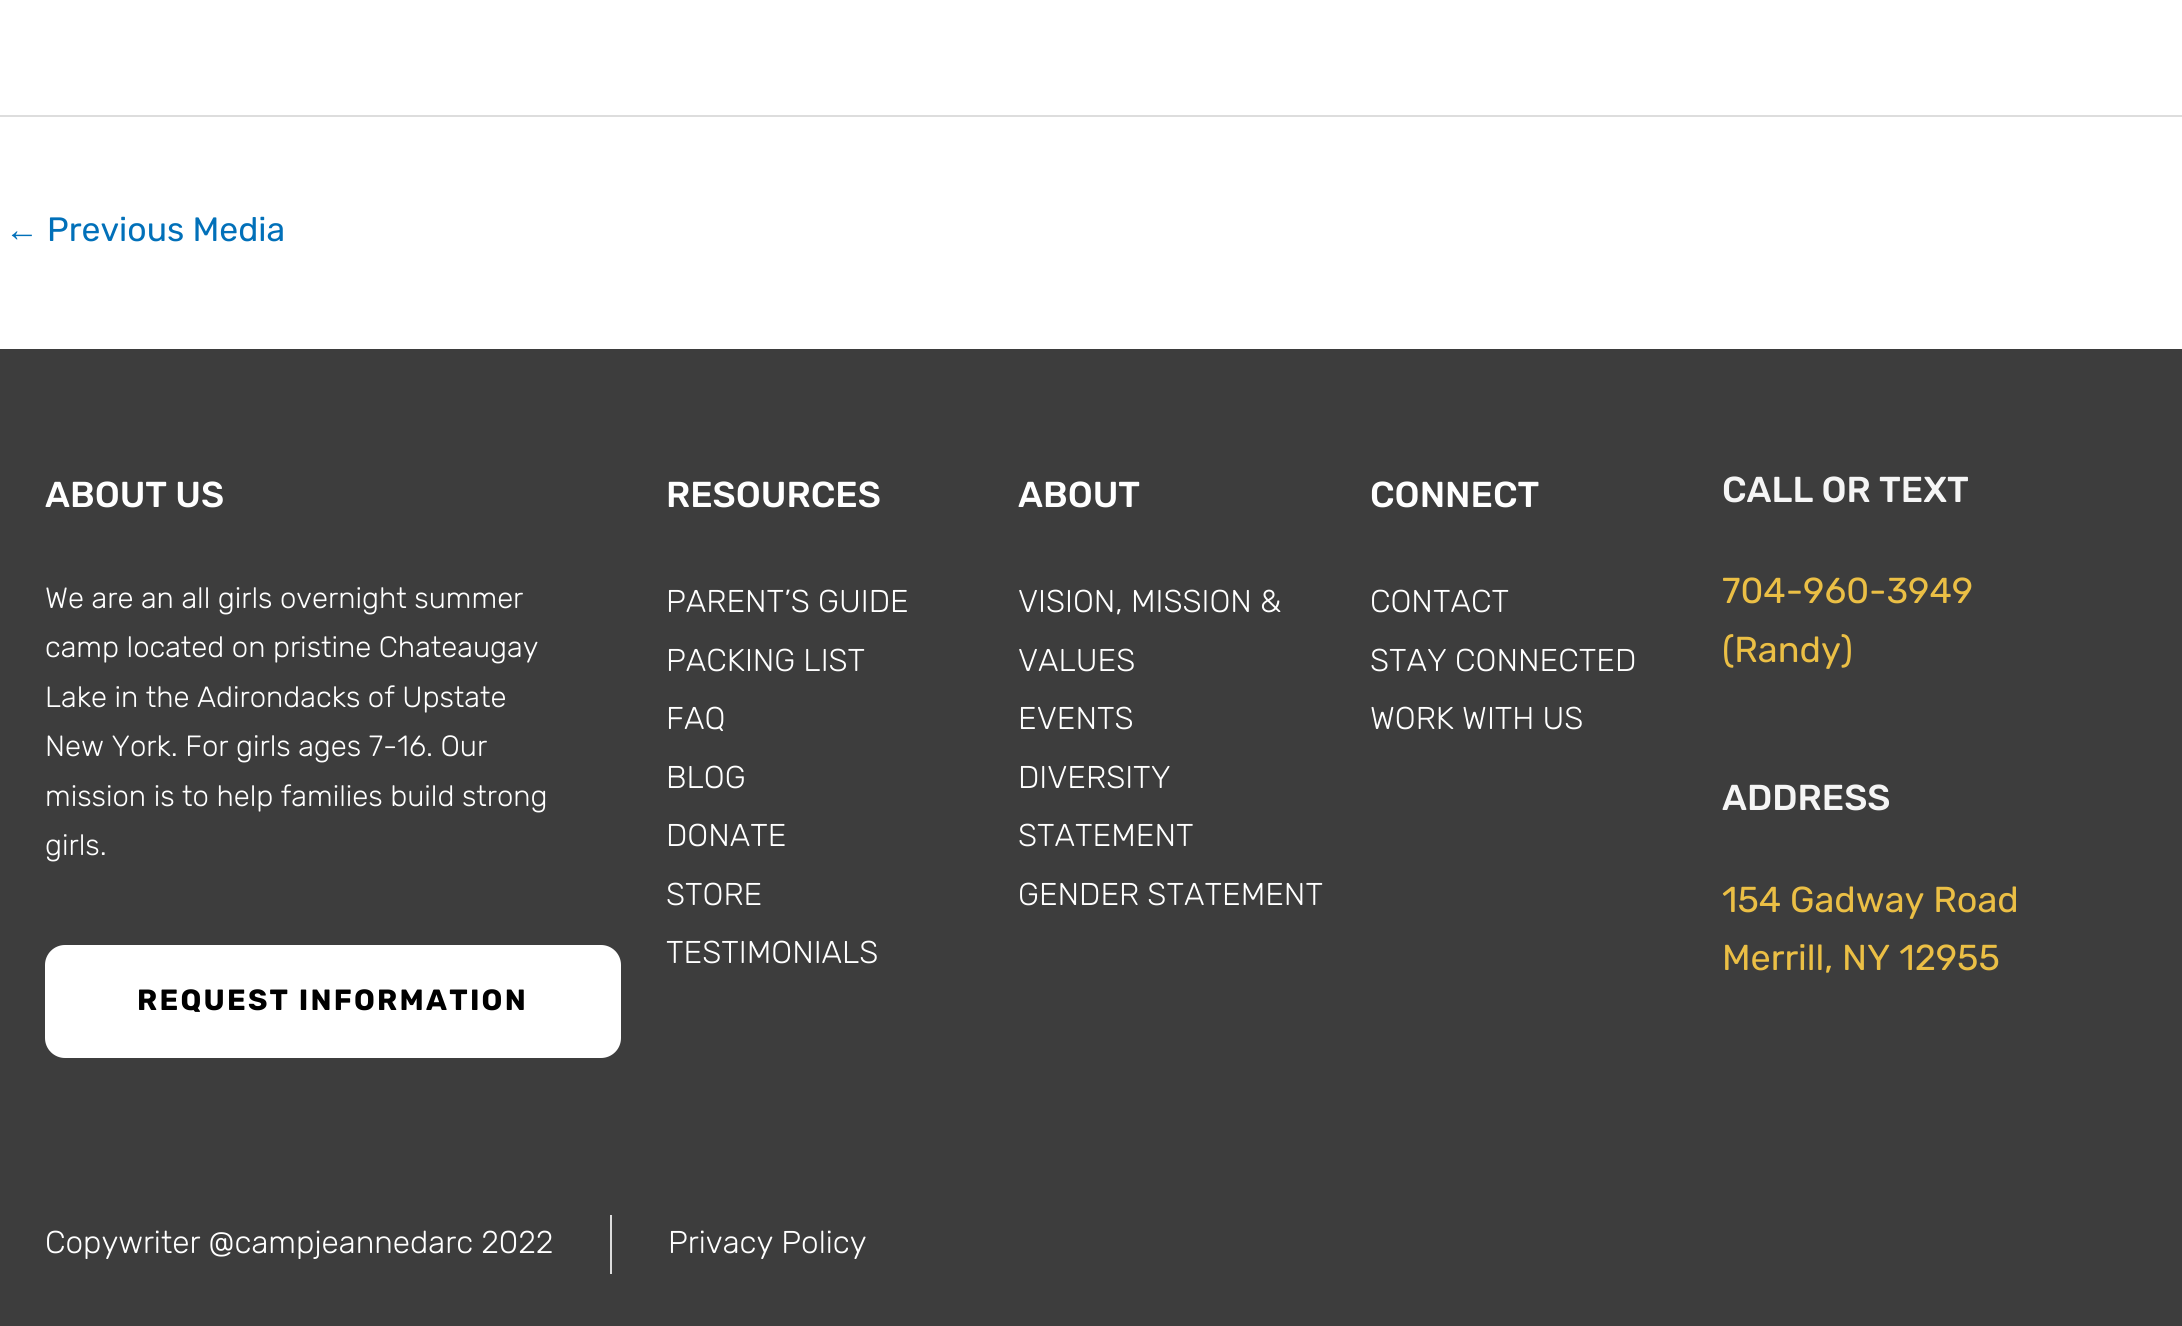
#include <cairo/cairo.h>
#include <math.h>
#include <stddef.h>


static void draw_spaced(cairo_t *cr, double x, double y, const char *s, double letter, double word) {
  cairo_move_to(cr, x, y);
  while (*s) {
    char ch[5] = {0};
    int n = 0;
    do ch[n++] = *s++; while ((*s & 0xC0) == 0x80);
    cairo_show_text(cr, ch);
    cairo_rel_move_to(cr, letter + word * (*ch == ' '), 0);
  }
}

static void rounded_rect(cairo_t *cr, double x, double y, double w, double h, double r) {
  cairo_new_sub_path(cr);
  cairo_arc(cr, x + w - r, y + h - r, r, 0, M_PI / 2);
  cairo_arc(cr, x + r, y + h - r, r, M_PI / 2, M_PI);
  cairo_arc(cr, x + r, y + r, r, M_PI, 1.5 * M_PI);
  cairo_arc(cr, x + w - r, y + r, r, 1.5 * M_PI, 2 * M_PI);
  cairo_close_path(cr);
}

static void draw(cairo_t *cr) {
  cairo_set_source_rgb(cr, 1, 1, 1);
  cairo_paint(cr);
  cairo_set_source_rgb(cr, 221 / 255.0, 221 / 255.0, 221 / 255.0);
  cairo_rectangle(cr, 0, 115, 2182, 2);
  cairo_fill(cr);
  cairo_set_source_rgb(cr, 61 / 255.0, 61 / 255.0, 61 / 255.0);
  cairo_rectangle(cr, 0, 349, 2182, 977);
  cairo_fill(cr);
  cairo_set_source_rgb(cr, 1, 1, 1);
  rounded_rect(cr, 45, 945, 576, 113, 20);
  cairo_fill(cr);
  cairo_set_source_rgb(cr, 221 / 255.0, 221 / 255.0, 221 / 255.0);
  cairo_rectangle(cr, 610, 1215, 2, 59);
  cairo_fill(cr);
  cairo_select_font_face(cr, "Liberation Sans", CAIRO_FONT_SLANT_NORMAL, CAIRO_FONT_WEIGHT_NORMAL);
  cairo_set_font_size(cr, 33.75);
  cairo_set_source_rgb(cr, 1 / 255.0, 112 / 255.0, 185 / 255.0);
  cairo_move_to(cr, 5, 241);
  cairo_show_text(cr, "←");
  cairo_select_font_face(cr, "Rubik", CAIRO_FONT_SLANT_NORMAL, CAIRO_FONT_WEIGHT_NORMAL);
  cairo_move_to(cr, 47, 241);
  cairo_show_text(cr, "Previous Media");
  cairo_select_font_face(cr, "Rubik Medium", CAIRO_FONT_SLANT_NORMAL, CAIRO_FONT_WEIGHT_NORMAL);
  cairo_set_font_size(cr, 36);
  cairo_set_source_rgb(cr, 1, 1, 1);
  cairo_move_to(cr, 45, 507);
  cairo_show_text(cr, "ABOUT US");
  cairo_select_font_face(cr, "Rubik Light", CAIRO_FONT_SLANT_NORMAL, CAIRO_FONT_WEIGHT_NORMAL);
  cairo_set_font_size(cr, 29.25);
  cairo_move_to(cr, 45, 608);
  cairo_show_text(cr, "We are an all girls overnight summer");
  cairo_move_to(cr, 45, 657);
  cairo_show_text(cr, "camp located on pristine Chateaugay");
  cairo_move_to(cr, 45, 707);
  cairo_show_text(cr, "Lake in the Adirondacks of Upstate");
  cairo_move_to(cr, 45, 756);
  cairo_show_text(cr, "New York. For girls ages 7-16. Our");
  cairo_move_to(cr, 45, 806);
  cairo_show_text(cr, "mission is to help families build strong");
  cairo_move_to(cr, 45, 855);
  cairo_show_text(cr, "girls.");
  cairo_select_font_face(cr, "Rubik", CAIRO_FONT_SLANT_NORMAL, CAIRO_FONT_WEIGHT_BOLD);
  cairo_set_source_rgb(cr, 0, 0, 0);
  draw_spaced(cr, 137, 1010, "REQUEST INFORMATION", 2.25, 0);
  cairo_select_font_face(cr, "Rubik Medium", CAIRO_FONT_SLANT_NORMAL, CAIRO_FONT_WEIGHT_NORMAL);
  cairo_set_font_size(cr, 36);
  cairo_set_source_rgb(cr, 1, 1, 1);
  cairo_move_to(cr, 666, 507);
  cairo_show_text(cr, "RESOURCES");
  cairo_select_font_face(cr, "Rubik Light", CAIRO_FONT_SLANT_NORMAL, CAIRO_FONT_WEIGHT_NORMAL);
  cairo_set_font_size(cr, 31.5);
  cairo_move_to(cr, 666, 612);
  cairo_show_text(cr, "PARENT’S GUIDE");
  cairo_move_to(cr, 666, 671);
  cairo_show_text(cr, "PACKING LIST");
  cairo_move_to(cr, 666, 729);
  cairo_show_text(cr, "FAQ");
  cairo_move_to(cr, 666, 788);
  cairo_show_text(cr, "BLOG");
  cairo_move_to(cr, 666, 846);
  cairo_show_text(cr, "DONATE");
  cairo_move_to(cr, 666, 905);
  cairo_show_text(cr, "STORE");
  cairo_move_to(cr, 666, 963);
  cairo_show_text(cr, "TESTIMONIALS");
  cairo_select_font_face(cr, "Rubik Medium", CAIRO_FONT_SLANT_NORMAL, CAIRO_FONT_WEIGHT_NORMAL);
  cairo_set_font_size(cr, 36);
  cairo_move_to(cr, 1018, 507);
  cairo_show_text(cr, "ABOUT");
  cairo_select_font_face(cr, "Rubik Light", CAIRO_FONT_SLANT_NORMAL, CAIRO_FONT_WEIGHT_NORMAL);
  cairo_set_font_size(cr, 31.5);
  cairo_move_to(cr, 1018, 612);
  cairo_show_text(cr, "VISION, MISSION &");
  cairo_move_to(cr, 1018, 671);
  cairo_show_text(cr, "VALUES");
  cairo_move_to(cr, 1018, 729);
  cairo_show_text(cr, "EVENTS");
  cairo_move_to(cr, 1018, 788);
  cairo_show_text(cr, "DIVERSITY");
  cairo_move_to(cr, 1018, 846);
  cairo_show_text(cr, "STATEMENT");
  cairo_move_to(cr, 1018, 905);
  cairo_show_text(cr, "GENDER STATEMENT");
  cairo_select_font_face(cr, "Rubik Medium", CAIRO_FONT_SLANT_NORMAL, CAIRO_FONT_WEIGHT_NORMAL);
  cairo_set_font_size(cr, 36);
  cairo_move_to(cr, 1370, 507);
  cairo_show_text(cr, "CONNECT");
  cairo_select_font_face(cr, "Rubik Light", CAIRO_FONT_SLANT_NORMAL, CAIRO_FONT_WEIGHT_NORMAL);
  cairo_set_font_size(cr, 31.5);
  cairo_move_to(cr, 1370, 612);
  cairo_show_text(cr, "CONTACT");
  cairo_move_to(cr, 1370, 671);
  cairo_show_text(cr, "STAY CONNECTED");
  cairo_move_to(cr, 1370, 729);
  cairo_show_text(cr, "WORK WITH US");
  cairo_select_font_face(cr, "Rubik Medium", CAIRO_FONT_SLANT_NORMAL, CAIRO_FONT_WEIGHT_NORMAL);
  cairo_set_font_size(cr, 36);
  cairo_set_source_rgb(cr, 245 / 255.0, 245 / 255.0, 245 / 255.0);
  cairo_move_to(cr, 1722, 502);
  cairo_show_text(cr, "CALL OR TEXT");
  cairo_select_font_face(cr, "Rubik", CAIRO_FONT_SLANT_NORMAL, CAIRO_FONT_WEIGHT_NORMAL);
  cairo_set_source_rgb(cr, 235 / 255.0, 191 / 255.0, 69 / 255.0);
  cairo_move_to(cr, 1722, 603);
  cairo_show_text(cr, "704-960-3949");
  cairo_move_to(cr, 1722, 662);
  cairo_show_text(cr, "(Randy)");
  cairo_select_font_face(cr, "Rubik Medium", CAIRO_FONT_SLANT_NORMAL, CAIRO_FONT_WEIGHT_NORMAL);
  cairo_set_source_rgb(cr, 245 / 255.0, 245 / 255.0, 245 / 255.0);
  cairo_move_to(cr, 1722, 810);
  cairo_show_text(cr, "ADDRESS");
  cairo_select_font_face(cr, "Rubik", CAIRO_FONT_SLANT_NORMAL, CAIRO_FONT_WEIGHT_NORMAL);
  cairo_set_source_rgb(cr, 235 / 255.0, 191 / 255.0, 69 / 255.0);
  cairo_move_to(cr, 1722, 912);
  cairo_show_text(cr, "154 Gadway Road");
  cairo_move_to(cr, 1722, 970);
  cairo_show_text(cr, "Merrill, NY 12955");
  cairo_select_font_face(cr, "Rubik Light", CAIRO_FONT_SLANT_NORMAL, CAIRO_FONT_WEIGHT_NORMAL);
  cairo_set_font_size(cr, 31.5);
  cairo_set_source_rgb(cr, 1, 1, 1);
  cairo_move_to(cr, 45, 1253);
  cairo_show_text(cr, "Copywriter @campjeannedarc 2022");
  cairo_move_to(cr, 668, 1253);
  cairo_show_text(cr, "Privacy Policy");
}

int main(void) {
  cairo_surface_t *surface = cairo_image_surface_create(CAIRO_FORMAT_RGB24, 2182, 1326);
  cairo_t *cr = cairo_create(surface);
  cairo_font_options_t *options = cairo_font_options_create();
  cairo_font_options_set_hint_metrics(options, CAIRO_HINT_METRICS_OFF);
  cairo_font_options_set_hint_style(options, CAIRO_HINT_STYLE_NONE);
  cairo_set_font_options(cr, options);
  cairo_set_miter_limit(cr, 4);
  draw(cr);
  cairo_surface_write_to_png(surface, "out.png");
  cairo_font_options_destroy(options);
  cairo_destroy(cr);
  cairo_surface_destroy(surface);
  return 0;
}
